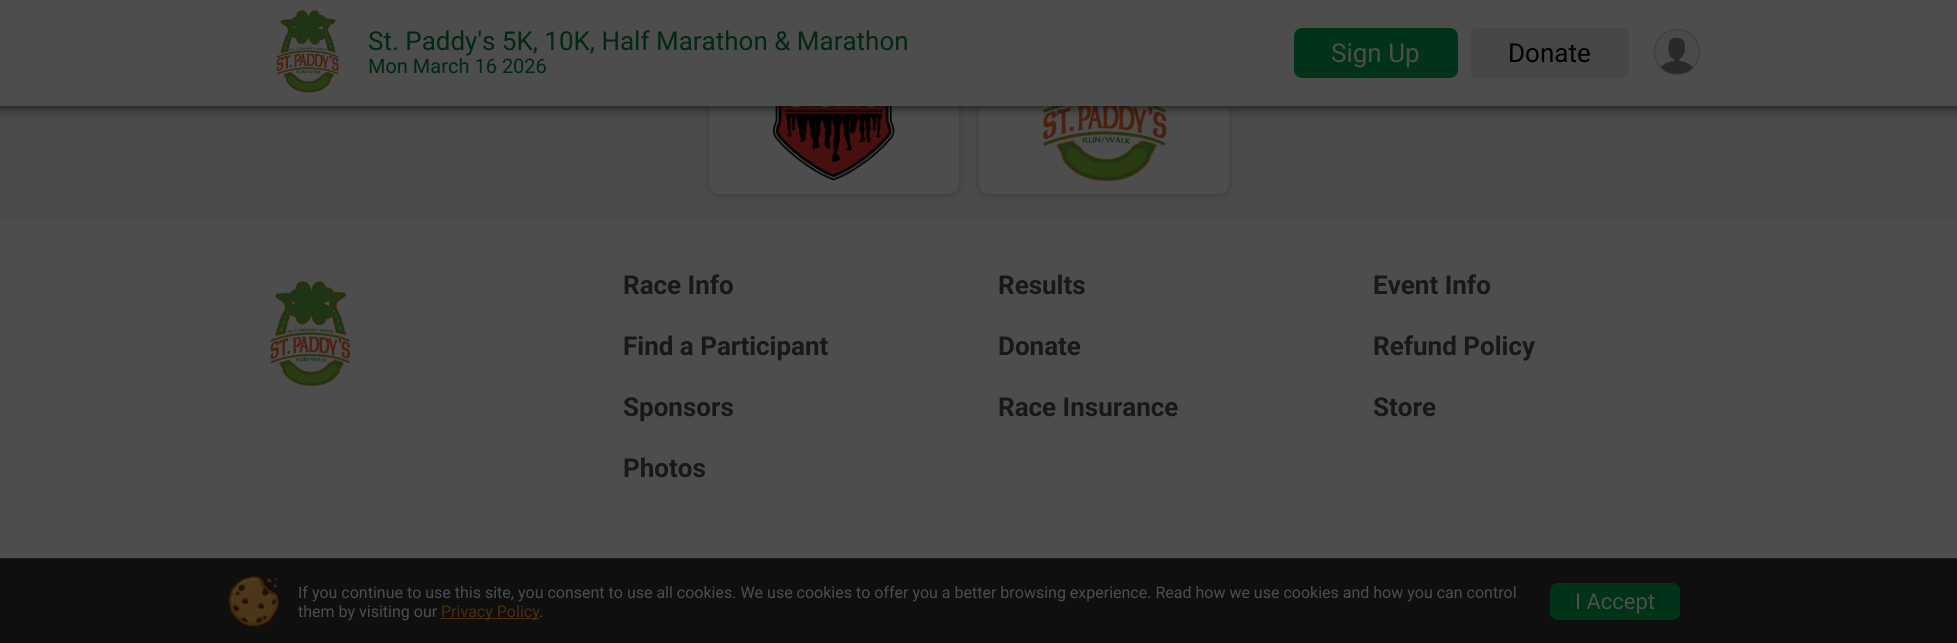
#include <cairo/cairo.h>
#include <math.h>
#include <stddef.h>


static void rounded_rect(cairo_t *cr, double x, double y, double w, double h, double r) {
  cairo_new_sub_path(cr);
  cairo_arc(cr, x + w - r, y + h - r, r, 0, M_PI / 2);
  cairo_arc(cr, x + r, y + h - r, r, M_PI / 2, M_PI);
  cairo_arc(cr, x + r, y + r, r, M_PI, 1.5 * M_PI);
  cairo_arc(cr, x + w - r, y + r, r, 1.5 * M_PI, 2 * M_PI);
  cairo_close_path(cr);
}

static void draw_shadow(cairo_t *cr, double x, double y, double w, double h, double r, double blur, double alpha) {
  cairo_push_group_with_content(cr, CAIRO_CONTENT_ALPHA);
  cairo_set_operator(cr, CAIRO_OPERATOR_SOURCE);
  for (int i = 15; i >= -15 && fmin(w, h) + blur * i / 3 > 0; i -= 2) {
    double e = blur * i / 6;
    cairo_set_source_rgba(cr, 0, 0, 0, alpha * erfc((i - 1) / 8.5) / 2);
    rounded_rect(cr, x - e, y - e, w + 2 * e, h + 2 * e, fmax(0, fmin(r + e + blur * .6, fmin(w, h) / 2 + e)));
    cairo_fill(cr);
  }
  cairo_pattern_t *soft = cairo_pop_group(cr);
  cairo_mask(cr, soft);
  cairo_pattern_destroy(soft);
}

static void draw_image(cairo_t *cr, const char *path, double x, double y, double w, double h) {
  cairo_surface_t *image = cairo_image_surface_create_from_png(path);
  cairo_save(cr);
  cairo_set_source_surface(cr, image, x, y);
  cairo_rectangle(cr, x, y, w, h);
  cairo_fill(cr);
  cairo_restore(cr);
  cairo_surface_destroy(image);
}

static void draw(cairo_t *cr) {
  cairo_set_source_rgb(cr, 74 / 255.0, 74 / 255.0, 74 / 255.0);
  cairo_paint(cr);
  cairo_set_source_rgb(cr, 0, 0, 0);
  draw_shadow(cr, 709, 8, 250, 187, 10, 3, 0.2);
  cairo_set_source_rgb(cr, 77 / 255.0, 77 / 255.0, 77 / 255.0);
  rounded_rect(cr, 709, 6, 250, 188, 10);
  cairo_fill(cr);
  draw_image(cr, "images/3.png", 772, 106, 123, 75);
  cairo_set_source_rgb(cr, 0, 0, 0);
  draw_shadow(cr, 979, 8, 250, 187, 10, 3, 0.2);
  cairo_set_source_rgb(cr, 77 / 255.0, 77 / 255.0, 77 / 255.0);
  rounded_rect(cr, 979, 6, 250, 188, 10);
  cairo_fill(cr);
  draw_image(cr, "images/4.png", 1042, 106, 125, 75);
  cairo_set_source_rgb(cr, 0, 0, 0);
  draw_shadow(cr, -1, -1, 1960, 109, 0, 5, 0.6);
  cairo_set_source_rgb(cr, 77 / 255.0, 77 / 255.0, 77 / 255.0);
  cairo_rectangle(cr, 0, 0, 1957, 106);
  cairo_fill(cr);
  draw_image(cr, "images/1.png", 276, 10, 63, 83);
  cairo_set_source_rgb(cr, 0, 51 / 255.0, 24 / 255.0);
  rounded_rect(cr, 1294, 28, 164, 50, 8);
  cairo_fill(cr);
  cairo_set_source_rgb(cr, 71 / 255.0, 71 / 255.0, 71 / 255.0);
  rounded_rect(cr, 1470, 28, 159, 50, 8);
  cairo_fill(cr);
  draw_image(cr, "images/2.png", 1655, 30, 44, 44);
  cairo_arc(cr, 1677, 52, 22.5, 0, 2 * M_PI);
  cairo_set_source_rgb(cr, 61 / 255.0, 61 / 255.0, 61 / 255.0);
  cairo_set_line_width(cr, 1);
  cairo_stroke(cr);
  cairo_set_source_rgb(cr, 77 / 255.0, 77 / 255.0, 77 / 255.0);
  cairo_rectangle(cr, 0, 221, 1957, 337);
  cairo_fill(cr);
  draw_image(cr, "images/5.png", 270, 281, 80, 105);
  cairo_set_source_rgb(cr, 15 / 255.0, 15 / 255.0, 15 / 255.0);
  cairo_rectangle(cr, 0, 559, 1957, 84);
  cairo_fill(cr);
  cairo_set_source_rgb(cr, 31 / 255.0, 31 / 255.0, 31 / 255.0);
  cairo_rectangle(cr, 0, 558, 1957, 1);
  cairo_fill(cr);
  draw_image(cr, "images/6.png", 228, 576, 51, 51);
  cairo_set_source_rgb(cr, 76 / 255.0, 46 / 255.0, 11 / 255.0);
  cairo_rectangle(cr, 440, 618, 99, 1);
  cairo_fill(cr);
  cairo_set_source_rgb(cr, 0, 51 / 255.0, 24 / 255.0);
  rounded_rect(cr, 1550, 583, 130, 37, 8);
  cairo_fill(cr);
  cairo_select_font_face(cr, "Roboto", CAIRO_FONT_SLANT_NORMAL, CAIRO_FONT_WEIGHT_NORMAL);
  cairo_set_font_size(cr, 26);
  cairo_set_source_rgb(cr, 0, 40 / 255.0, 19 / 255.0);
  cairo_move_to(cr, 368, 50);
  cairo_show_text(cr, "St. Paddy's 5K, 10K, Half Marathon & Marathon");
  cairo_set_font_size(cr, 20);
  cairo_move_to(cr, 368, 73);
  cairo_show_text(cr, "Mon March 16 2026");
  cairo_set_font_size(cr, 26);
  cairo_set_source_rgb(cr, 77 / 255.0, 77 / 255.0, 77 / 255.0);
  cairo_move_to(cr, 1331, 62);
  cairo_show_text(cr, "Sign Up");
  cairo_set_source_rgb(cr, 0, 0, 0);
  cairo_move_to(cr, 1508, 62);
  cairo_show_text(cr, "Donate");
  cairo_select_font_face(cr, "Roboto", CAIRO_FONT_SLANT_NORMAL, CAIRO_FONT_WEIGHT_BOLD);
  cairo_set_source_rgb(cr, 24 / 255.0, 24 / 255.0, 24 / 255.0);
  cairo_move_to(cr, 623, 294);
  cairo_show_text(cr, "Race Info");
  cairo_move_to(cr, 623, 355);
  cairo_show_text(cr, "Find a Participant");
  cairo_move_to(cr, 623, 416);
  cairo_show_text(cr, "Sponsors");
  cairo_move_to(cr, 623, 477);
  cairo_show_text(cr, "Photos");
  cairo_move_to(cr, 998, 294);
  cairo_show_text(cr, "Results");
  cairo_move_to(cr, 998, 355);
  cairo_show_text(cr, "Donate");
  cairo_move_to(cr, 998, 416);
  cairo_show_text(cr, "Race Insurance");
  cairo_move_to(cr, 1373, 294);
  cairo_show_text(cr, "Event Info");
  cairo_move_to(cr, 1373, 355);
  cairo_show_text(cr, "Refund Policy");
  cairo_move_to(cr, 1373, 416);
  cairo_show_text(cr, "Store");
  cairo_select_font_face(cr, "Roboto", CAIRO_FONT_SLANT_NORMAL, CAIRO_FONT_WEIGHT_NORMAL);
  cairo_set_font_size(cr, 16);
  cairo_set_source_rgb(cr, 77 / 255.0, 77 / 255.0, 77 / 255.0);
  cairo_move_to(cr, 298, 598);
  cairo_show_text(cr, "If you continue to use this site, you consent to use all cookies. We use cookies to offer you a better browsing experience. Read how we use cookies and how you can control");
  cairo_move_to(cr, 298, 617);
  cairo_show_text(cr, "them by visiting our");
  cairo_set_source_rgb(cr, 76 / 255.0, 46 / 255.0, 11 / 255.0);
  cairo_move_to(cr, 441, 617);
  cairo_show_text(cr, "Privacy Policy");
  cairo_set_source_rgb(cr, 77 / 255.0, 77 / 255.0, 77 / 255.0);
  cairo_move_to(cr, 539, 617);
  cairo_show_text(cr, ".");
  cairo_set_font_size(cr, 22);
  cairo_move_to(cr, 1575, 609);
  cairo_show_text(cr, "I Accept");
}

int main(void) {
  cairo_surface_t *surface = cairo_image_surface_create(CAIRO_FORMAT_RGB24, 1957, 643);
  cairo_t *cr = cairo_create(surface);
  cairo_font_options_t *options = cairo_font_options_create();
  cairo_font_options_set_hint_metrics(options, CAIRO_HINT_METRICS_OFF);
  cairo_font_options_set_hint_style(options, CAIRO_HINT_STYLE_NONE);
  cairo_set_font_options(cr, options);
  cairo_set_miter_limit(cr, 4);
  draw(cr);
  cairo_surface_write_to_png(surface, "out.png");
  cairo_font_options_destroy(options);
  cairo_destroy(cr);
  cairo_surface_destroy(surface);
  return 0;
}
